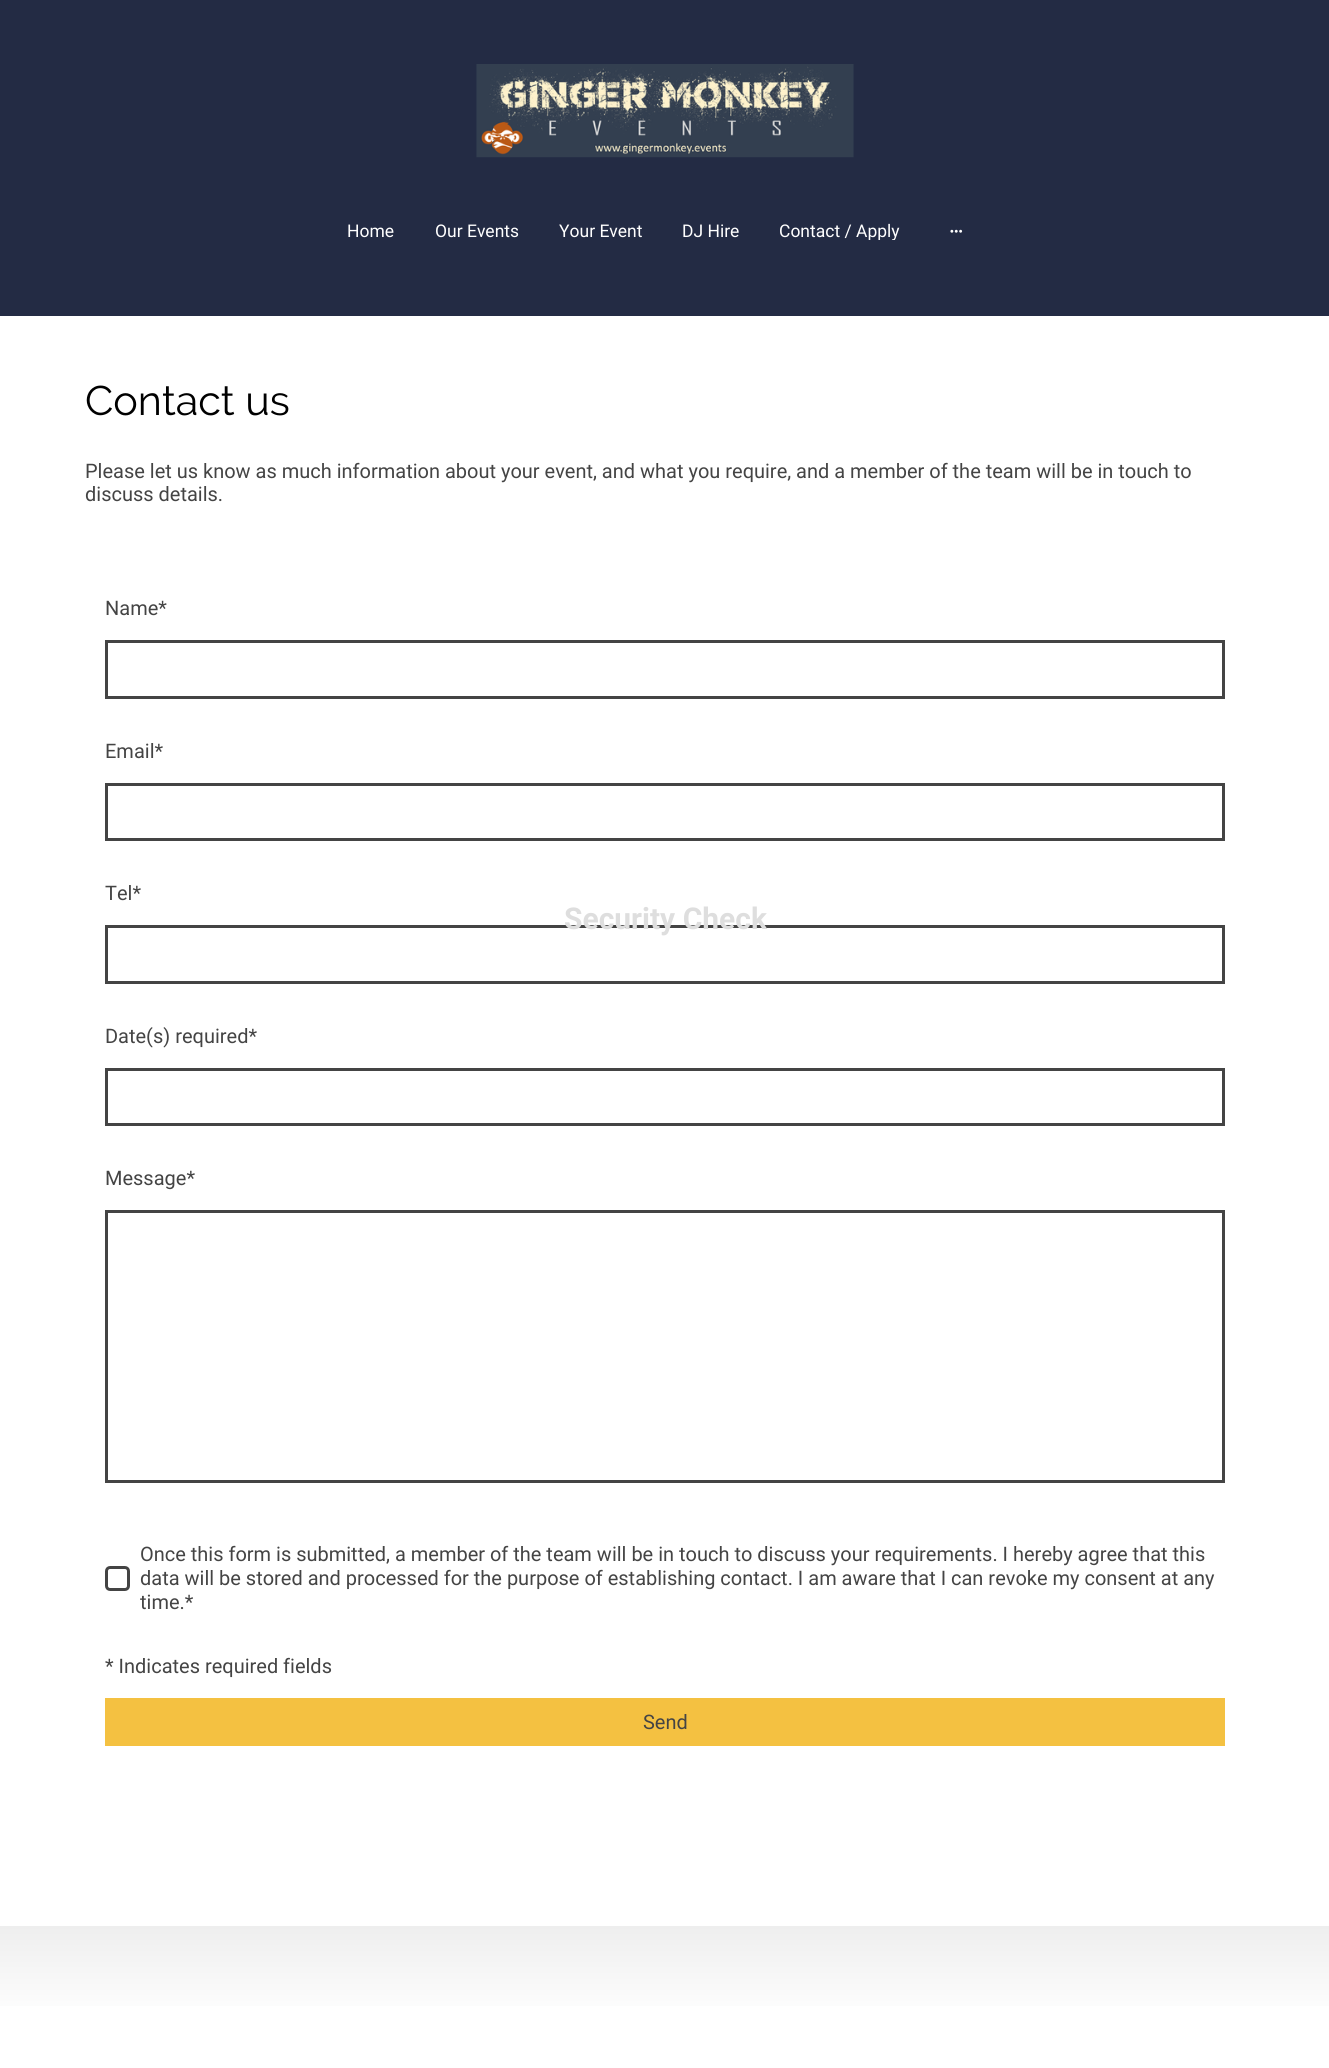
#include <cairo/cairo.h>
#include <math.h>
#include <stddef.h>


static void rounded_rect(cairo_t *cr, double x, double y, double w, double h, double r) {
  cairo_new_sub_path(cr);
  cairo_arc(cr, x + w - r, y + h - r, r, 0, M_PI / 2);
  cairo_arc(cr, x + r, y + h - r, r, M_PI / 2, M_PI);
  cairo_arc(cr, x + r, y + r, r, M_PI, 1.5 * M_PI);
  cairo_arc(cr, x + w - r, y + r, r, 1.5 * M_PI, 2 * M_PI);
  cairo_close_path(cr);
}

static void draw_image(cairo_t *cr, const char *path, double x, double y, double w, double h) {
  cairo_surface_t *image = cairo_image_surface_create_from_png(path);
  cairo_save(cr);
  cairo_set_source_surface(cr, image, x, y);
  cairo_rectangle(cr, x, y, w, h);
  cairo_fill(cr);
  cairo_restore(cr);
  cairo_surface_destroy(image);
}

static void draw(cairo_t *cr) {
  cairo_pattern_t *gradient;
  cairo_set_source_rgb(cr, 1, 1, 1);
  cairo_paint(cr);
  cairo_set_source_rgb(cr, 35 / 255.0, 43 / 255.0, 68 / 255.0);
  cairo_rectangle(cr, 0, 0, 1329, 316);
  cairo_fill(cr);
  draw_image(cr, "images/1.png", 476, 64, 378, 94);
  draw_image(cr, "images/2.png", 950, 229, 13, 4);
  cairo_rectangle(cr, 106.5, 641.5, 1117, 56);
  cairo_set_source_rgb(cr, 68 / 255.0, 68 / 255.0, 68 / 255.0);
  cairo_set_line_width(cr, 3);
  cairo_stroke(cr);
  cairo_rectangle(cr, 106.5, 784.5, 1117, 55);
  cairo_stroke(cr);
  cairo_rectangle(cr, 106.5, 926.5, 1117, 56);
  cairo_stroke(cr);
  cairo_rectangle(cr, 106.5, 1069.5, 1117, 55);
  cairo_stroke(cr);
  cairo_rectangle(cr, 106.5, 1211.5, 1117, 270);
  cairo_stroke(cr);
  rounded_rect(cr, 106.5, 1567.5, 22, 22, 3.5);
  cairo_stroke(cr);
  cairo_set_source_rgb(cr, 244 / 255.0, 193 / 255.0, 65 / 255.0);
  cairo_rectangle(cr, 105, 1698, 1120, 48);
  cairo_fill(cr);
  gradient = cairo_pattern_create_linear(665, 1926, 665, 2020);
  cairo_pattern_add_color_stop_rgba(gradient, 0, 238 / 255.0, 238 / 255.0, 238 / 255.0, 1);
  cairo_pattern_add_color_stop_rgba(gradient, 1, 1, 1, 1, 1);
  cairo_set_source(cr, gradient);
  cairo_pattern_destroy(gradient);
  cairo_rectangle(cr, 0, 1926, 1329, 80);
  cairo_fill(cr);
  cairo_select_font_face(cr, "Roboto", CAIRO_FONT_SLANT_NORMAL, CAIRO_FONT_WEIGHT_NORMAL);
  cairo_set_font_size(cr, 17.5);
  cairo_set_source_rgb(cr, 1, 1, 1);
  cairo_move_to(cr, 347, 237);
  cairo_show_text(cr, "Home");
  cairo_move_to(cr, 435, 237);
  cairo_show_text(cr, "Our Events");
  cairo_move_to(cr, 559, 237);
  cairo_show_text(cr, "Your Event");
  cairo_move_to(cr, 682, 237);
  cairo_show_text(cr, "DJ Hire");
  cairo_save(cr);
  cairo_rectangle(cr, 780, 220, 120, 20);
  cairo_clip(cr);
  cairo_move_to(cr, 779, 237);
  cairo_show_text(cr, "Contact / Apply");
  cairo_restore(cr);
  cairo_select_font_face(cr, "Raleway", CAIRO_FONT_SLANT_NORMAL, CAIRO_FONT_WEIGHT_NORMAL);
  cairo_set_font_size(cr, 41.25);
  cairo_set_source_rgb(cr, 0, 0, 0);
  cairo_move_to(cr, 85, 415);
  cairo_show_text(cr, "Contact us");
  cairo_select_font_face(cr, "Roboto", CAIRO_FONT_SLANT_NORMAL, CAIRO_FONT_WEIGHT_NORMAL);
  cairo_set_font_size(cr, 20);
  cairo_set_source_rgb(cr, 68 / 255.0, 68 / 255.0, 68 / 255.0);
  cairo_move_to(cr, 85, 478);
  cairo_show_text(cr, "Please let us know as much information about your event, and what you require, and a member of the team will be in touch to");
  cairo_move_to(cr, 85, 501);
  cairo_show_text(cr, "discuss details.");
  cairo_move_to(cr, 105, 615);
  cairo_show_text(cr, "Name*");
  cairo_move_to(cr, 105, 758);
  cairo_show_text(cr, "Email*");
  cairo_move_to(cr, 105, 900);
  cairo_show_text(cr, "Tel*");
  cairo_move_to(cr, 105, 1043);
  cairo_show_text(cr, "Date(s) required*");
  cairo_move_to(cr, 105, 1185);
  cairo_show_text(cr, "Message*");
  cairo_move_to(cr, 140, 1561);
  cairo_show_text(cr, "Once this form is submitted, a member of the team will be in touch to discuss your requirements. I hereby agree that this");
  cairo_move_to(cr, 140, 1585);
  cairo_show_text(cr, "data will be stored and processed for the purpose of establishing contact. I am aware that I can revoke my consent at any");
  cairo_move_to(cr, 140, 1609);
  cairo_show_text(cr, "time.*");
  cairo_move_to(cr, 105, 1673);
  cairo_show_text(cr, "* Indicates required fields");
  cairo_move_to(cr, 643, 1729);
  cairo_show_text(cr, "Send");
  cairo_select_font_face(cr, "Roboto", CAIRO_FONT_SLANT_NORMAL, CAIRO_FONT_WEIGHT_BOLD);
  cairo_set_font_size(cr, 30);
  cairo_set_source_rgb(cr, 222 / 255.0, 222 / 255.0, 222 / 255.0);
  cairo_move_to(cr, 564, 929);
  cairo_show_text(cr, "Security Check");
}

int main(void) {
  cairo_surface_t *surface = cairo_image_surface_create(CAIRO_FORMAT_RGB24, 1329, 2068);
  cairo_t *cr = cairo_create(surface);
  cairo_font_options_t *options = cairo_font_options_create();
  cairo_font_options_set_hint_metrics(options, CAIRO_HINT_METRICS_OFF);
  cairo_font_options_set_hint_style(options, CAIRO_HINT_STYLE_NONE);
  cairo_set_font_options(cr, options);
  cairo_set_miter_limit(cr, 4);
  draw(cr);
  cairo_surface_write_to_png(surface, "out.png");
  cairo_font_options_destroy(options);
  cairo_destroy(cr);
  cairo_surface_destroy(surface);
  return 0;
}
